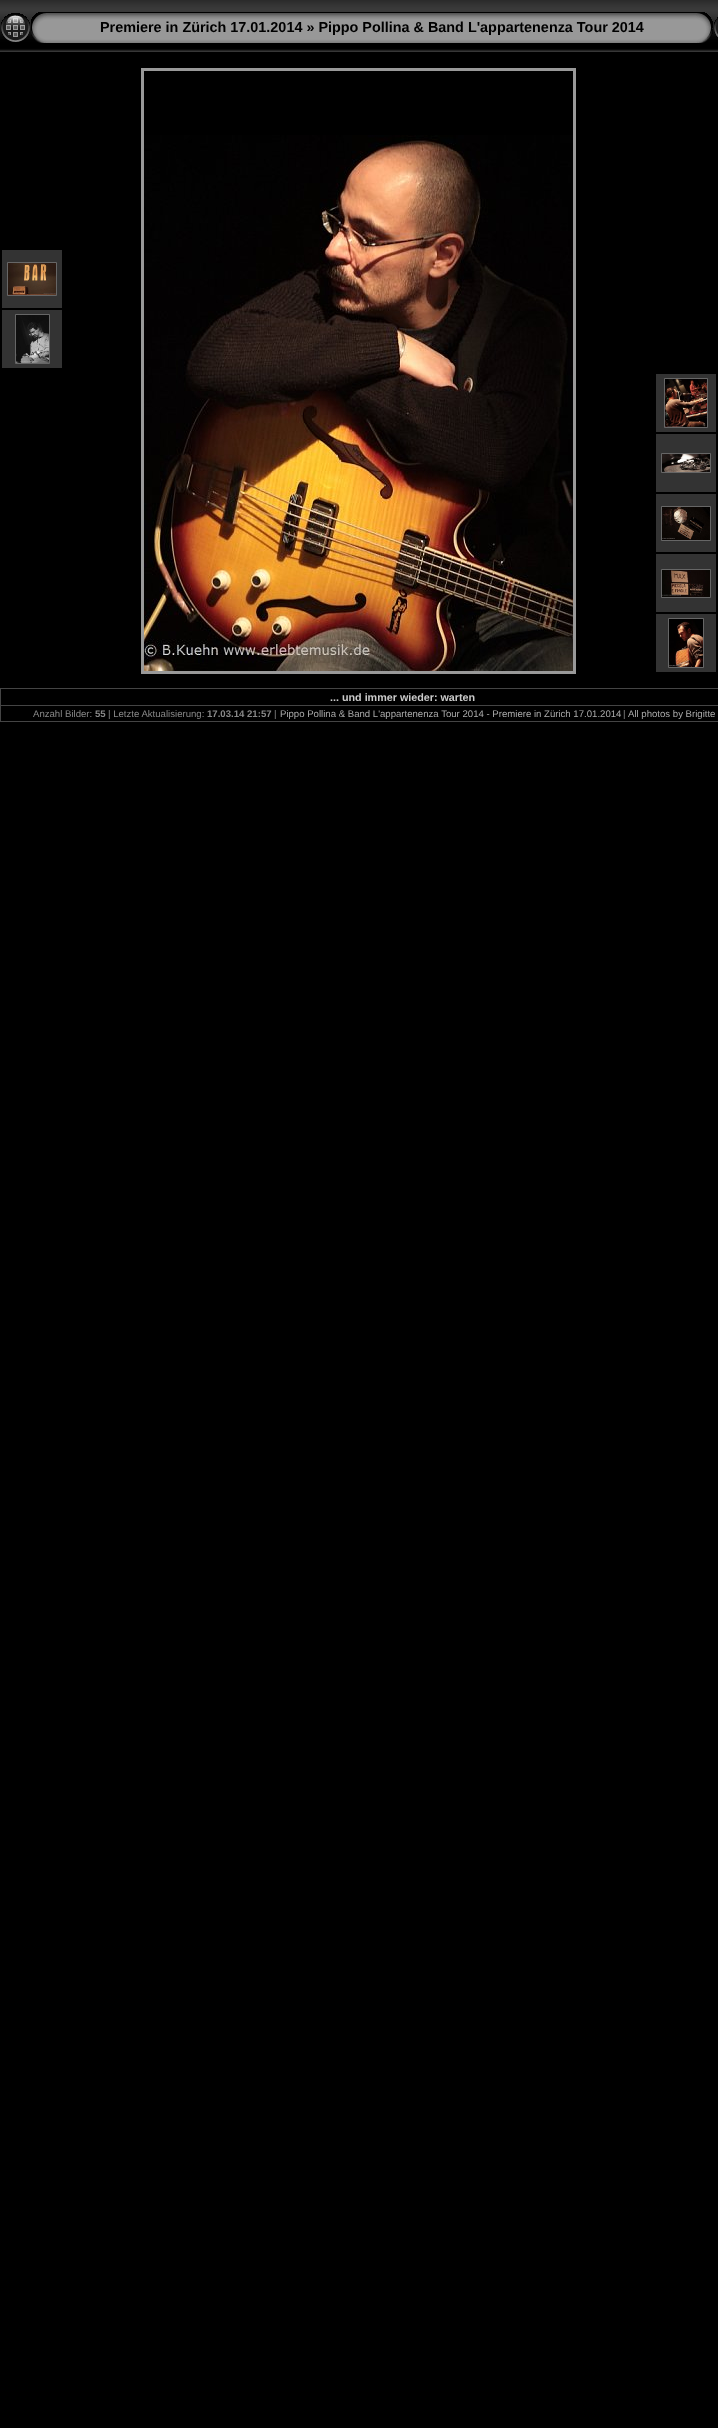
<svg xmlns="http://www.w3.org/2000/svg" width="718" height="2428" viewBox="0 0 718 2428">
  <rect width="100%" height="100%" fill="#000"/>
  <image x="0" y="0" width="718" height="52" href="img/1.png"/>
  <image x="1" y="13" width="29" height="29" href="img/2.png"/>
  <image x="31" y="12" width="20" height="31" href="img/3.png"/>
  <image x="51" y="12" width="642" height="31" href="img/4.png"/>
  <image x="693" y="12" width="20" height="31" href="img/5.png"/>
  <image x="714" y="17" width="4" height="20" href="img/6.png"/>
  <path d="M2 250h60v58H2z" fill="#333"/>
  <path d="M7.5 262.5h49v33H7.5z" fill="none" stroke="#666"/>
  <image x="8" y="263" width="48" height="32" href="img/7.png"/>
  <path d="M2 310h60v58H2z" fill="#333"/>
  <path d="M15.5 314.5h34v49H15.5z" fill="none" stroke="#666"/>
  <image x="16" y="315" width="33" height="48" href="img/8.png"/>
  <path d="M142.5 69.5h432v603H142.5z" fill="none" stroke="#999" stroke-width="3"/>
  <image x="144" y="135" width="429" height="536" href="img/9.png"/>
  <path d="M656 374h60v58H656z" fill="#333"/>
  <path d="M664.5 378.5h43v49H664.5z" fill="none" stroke="#666"/>
  <image x="665" y="379" width="42" height="48" href="img/10.png"/>
  <path d="M656 434h60v58H656z" fill="#333"/>
  <path d="M661.5 453.5h49v19H661.5z" fill="none" stroke="#666"/>
  <image x="662" y="454" width="48" height="18" href="img/11.png"/>
  <path d="M656 494h60v58H656z" fill="#333"/>
  <path d="M661.5 506.5h49v34H661.5z" fill="none" stroke="#666"/>
  <image x="662" y="507" width="48" height="33" href="img/12.png"/>
  <path d="M656 554h60v58H656z" fill="#333"/>
  <path d="M661.5 569.5h49v28H661.5z" fill="none" stroke="#666"/>
  <image x="662" y="570" width="48" height="27" href="img/13.png"/>
  <path d="M656 614h60v58H656z" fill="#333"/>
  <path d="M668.5 618.5h35v49H668.5z" fill="none" stroke="#666"/>
  <image x="669" y="619" width="34" height="48" href="img/14.png"/>
  <path d="M0 688h718v1H0z" fill="#444"/>
  <path d="M0 721h718v1H0z" fill="#444"/>
  <path d="M0 688h1v34H0z" fill="#444"/>
  <path d="M0 705h718v1H0z" fill="#444"/>
  <text x="100" y="32" font-family="Liberation Sans" font-size="14.4" font-weight="bold" fill="#000">Premiere in Zürich 17.01.2014 » Pippo Pollina &amp; Band L'appartenenza Tour 2014</text>
  <text x="330" y="701" font-family="Liberation Sans" font-size="10.75" font-weight="bold" fill="#ccc">... und immer wieder: warten</text>
  <text x="33" y="717" font-family="Liberation Sans" font-size="9.6" fill="#888">Anzahl Bilder:</text>
  <text x="95" y="717" font-family="Liberation Sans" font-size="9.6" font-weight="bold" fill="#888">55</text>
  <text x="108" y="717" font-family="Liberation Sans" font-size="9.6" fill="#888">| Letzte Aktualisierung:</text>
  <text x="207" y="717" font-family="Liberation Sans" font-size="9.6" font-weight="bold" fill="#888">17.03.14 21:57</text>
  <text x="274" y="717" font-family="Liberation Sans" font-size="9.6" fill="#888">|</text>
  <text x="280" y="717" font-family="Liberation Sans" font-size="9.6" fill="#aaa">Pippo Pollina &amp; Band L'appartenenza Tour 2014 - Premiere in Zürich 17.01.2014</text>
  <text x="623" y="717" font-family="Liberation Sans" font-size="9.6" fill="#888">|</text>
  <text x="628" y="717" font-family="Liberation Sans" font-size="9.6" fill="#aaa">All photos by Brigitte</text>
</svg>
